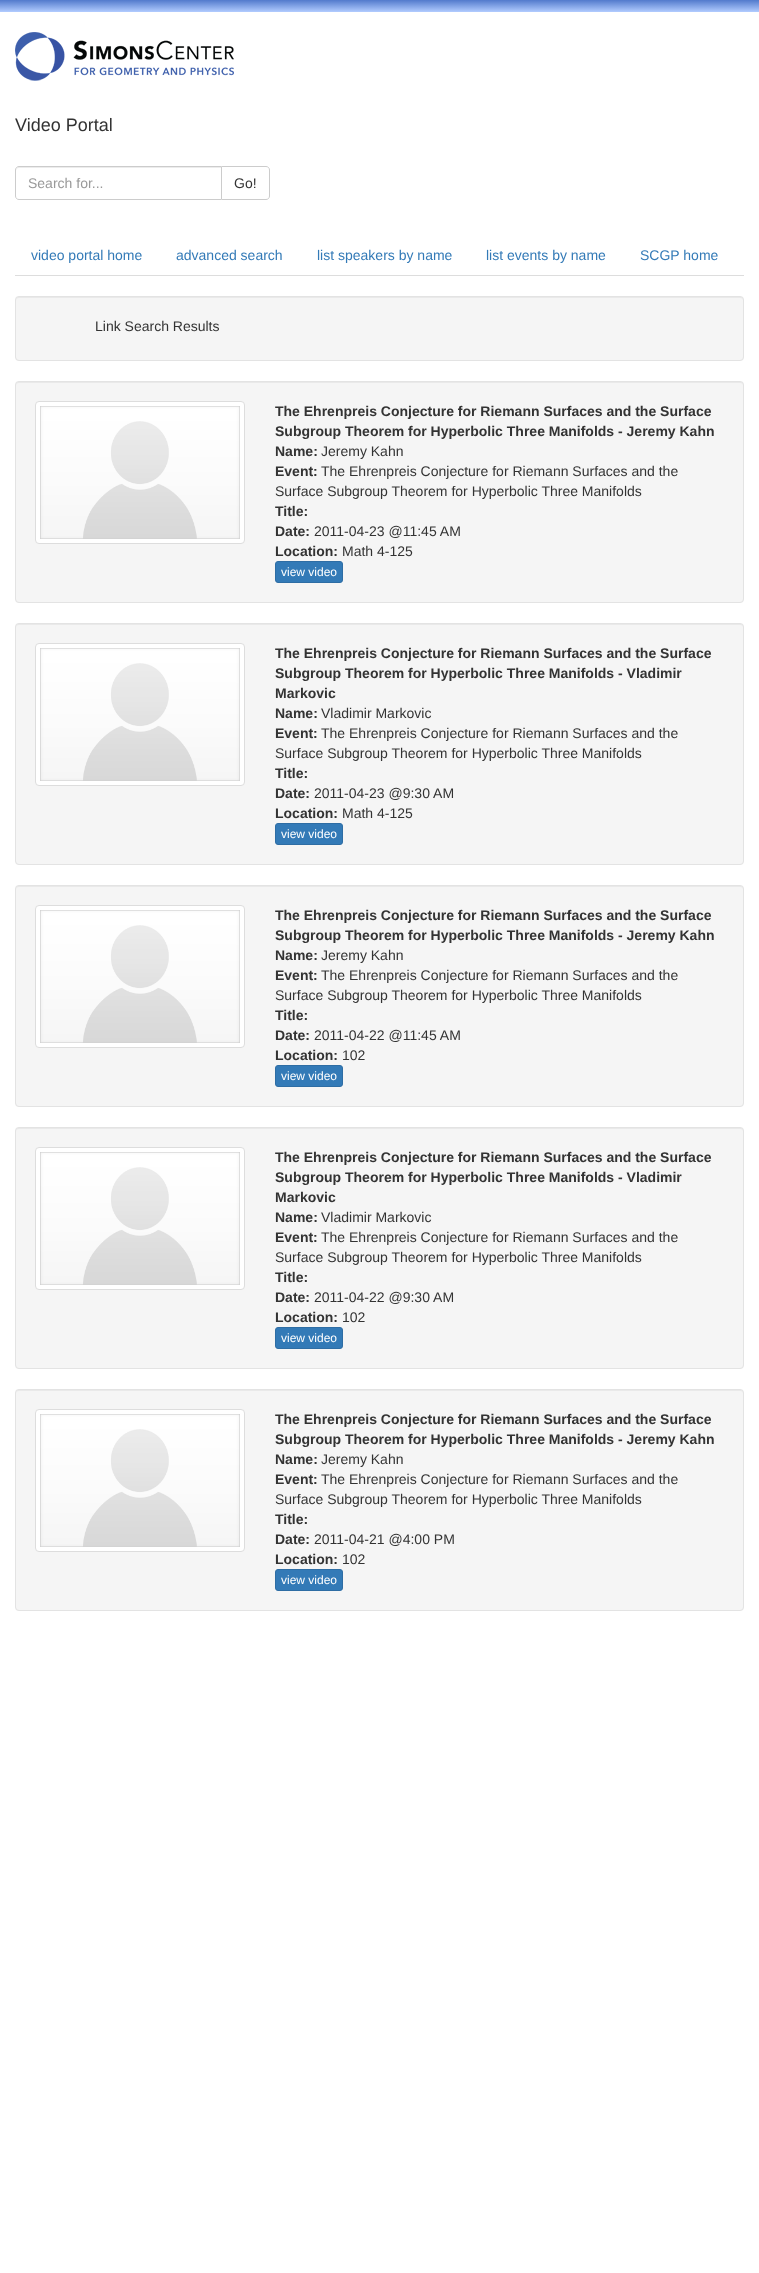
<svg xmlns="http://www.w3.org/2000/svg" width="759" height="2273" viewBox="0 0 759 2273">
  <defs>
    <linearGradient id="g1" gradientUnits="userSpaceOnUse" x1="380" y1="0" x2="380" y2="12"><stop offset="0" stop-color="#527acc"/><stop offset="1" stop-color="#b2ccff"/></linearGradient>
  </defs>
  <rect width="100%" height="100%" fill="#fff"/>
  <path d="M0 0h759v12H0z" fill="url(#g1)"/>
  <image x="15" y="32" width="219" height="49" href="img/1.png"/>
  <path d="M221.5 166.5H266C268 166.5 269.5 168 269.5 170V196C269.5 198 268 199.5 266 199.5H221.5Z" fill="none" stroke="#ccc"/>
  <path d="M19 166H222V200H19C17 200 15 198 15 196V170C15 168 17 166 19 166Z" fill="#fff"/>
  <path d="M19 168H221V167H18C16 168 16 169 16 171C16 169 17 168 19 168Z" fill="#ececec"/>
  <path d="M19 166.5H221.5V199.5H19C17 199.5 15.5 198 15.5 196V170C15.5 168 17 166.5 19 166.5Z" fill="none" stroke="#ccc"/>
  <path d="M15 275h729v1H15z" fill="#ddd"/>
  <rect x="15" y="296" width="729" height="65" rx="4" fill="#f5f5f5"/>
  <path d="M19 298H740C742 298 743 299 743 301C743 299 742 297 740 297H19C17 297 16 299 16 301C16 299 17 298 19 298Z" fill="#e9e9e9"/>
  <rect x="15.5" y="296.5" width="728" height="64" rx="3.5" fill="none" stroke="#e3e3e3"/>
  <rect x="15" y="381" width="729" height="222" rx="4" fill="#f5f5f5"/>
  <path d="M19 383H740C742 383 743 384 743 386C743 384 742 382 740 382H19C17 382 16 384 16 386C16 384 17 383 19 383Z" fill="#e9e9e9"/>
  <rect x="15.5" y="381.5" width="728" height="221" rx="3.5" fill="none" stroke="#e3e3e3"/>
  <rect x="35.5" y="401.5" width="209" height="142" rx="3.5" fill="#fff" stroke="#ddd"/>
  <image x="40" y="406" width="200" height="133" href="img/2.png"/>
  <rect x="275.5" y="561.5" width="67" height="21" rx="2.5" fill="#337ab7" stroke="#2e6da4"/>
  <rect x="15" y="623" width="729" height="242" rx="4" fill="#f5f5f5"/>
  <path d="M19 625H740C742 625 743 626 743 628C743 626 742 624 740 624H19C17 624 16 626 16 628C16 626 17 625 19 625Z" fill="#e9e9e9"/>
  <rect x="15.5" y="623.5" width="728" height="241" rx="3.5" fill="none" stroke="#e3e3e3"/>
  <rect x="35.5" y="643.5" width="209" height="142" rx="3.5" fill="#fff" stroke="#ddd"/>
  <image x="40" y="648" width="200" height="133" href="img/2.png"/>
  <rect x="275.5" y="823.5" width="67" height="21" rx="2.5" fill="#337ab7" stroke="#2e6da4"/>
  <rect x="15" y="885" width="729" height="222" rx="4" fill="#f5f5f5"/>
  <path d="M19 887H740C742 887 743 888 743 890C743 888 742 886 740 886H19C17 886 16 888 16 890C16 888 17 887 19 887Z" fill="#e9e9e9"/>
  <rect x="15.5" y="885.5" width="728" height="221" rx="3.5" fill="none" stroke="#e3e3e3"/>
  <rect x="35.5" y="905.5" width="209" height="142" rx="3.5" fill="#fff" stroke="#ddd"/>
  <image x="40" y="910" width="200" height="133" href="img/2.png"/>
  <rect x="275.5" y="1065.5" width="67" height="21" rx="2.5" fill="#337ab7" stroke="#2e6da4"/>
  <rect x="15" y="1127" width="729" height="242" rx="4" fill="#f5f5f5"/>
  <path d="M19 1129H740C742 1129 743 1130 743 1132C743 1130 742 1128 740 1128H19C17 1128 16 1130 16 1132C16 1130 17 1129 19 1129Z" fill="#e9e9e9"/>
  <rect x="15.5" y="1127.5" width="728" height="241" rx="3.5" fill="none" stroke="#e3e3e3"/>
  <rect x="35.5" y="1147.5" width="209" height="142" rx="3.5" fill="#fff" stroke="#ddd"/>
  <image x="40" y="1152" width="200" height="133" href="img/2.png"/>
  <rect x="275.5" y="1327.5" width="67" height="21" rx="2.5" fill="#337ab7" stroke="#2e6da4"/>
  <rect x="15" y="1389" width="729" height="222" rx="4" fill="#f5f5f5"/>
  <path d="M19 1391H740C742 1391 743 1392 743 1394C743 1392 742 1390 740 1390H19C17 1390 16 1392 16 1394C16 1392 17 1391 19 1391Z" fill="#e9e9e9"/>
  <rect x="15.5" y="1389.5" width="728" height="221" rx="3.5" fill="none" stroke="#e3e3e3"/>
  <rect x="35.5" y="1409.5" width="209" height="142" rx="3.5" fill="#fff" stroke="#ddd"/>
  <image x="40" y="1414" width="200" height="133" href="img/3.png"/>
  <rect x="275.5" y="1569.5" width="67" height="21" rx="2.5" fill="#337ab7" stroke="#2e6da4"/>
  <text x="15" y="131" font-family="Liberation Sans" font-size="18" fill="#333">Video Portal</text>
  <text x="28" y="188" font-family="Liberation Sans" font-size="14" fill="#999">Search for...</text>
  <text x="234" y="188" font-family="Liberation Sans" font-size="14" fill="#333">Go!</text>
  <g font-family="Liberation Sans" font-size="14" fill="#337ab7">
    <text x="31" y="260">video portal home</text>
    <text x="176" y="260">advanced search</text>
    <text x="317" y="260">list speakers by name</text>
    <text x="486" y="260">list events by name</text>
    <text x="640" y="260">SCGP home</text>
  </g>
  <text x="95" y="331" font-family="Liberation Sans" font-size="14" fill="#333">Link Search Results</text>
  <g font-family="Liberation Sans" font-size="14" font-weight="bold" fill="#333">
    <text x="275" y="416">The Ehrenpreis Conjecture for Riemann Surfaces and the Surface</text>
    <text x="275" y="436">Subgroup Theorem for Hyperbolic Three Manifolds - Jeremy Kahn</text>
    <text x="275" y="456">Name:</text>
  </g>
  <text x="321" y="456" font-family="Liberation Sans" font-size="14" fill="#333">Jeremy Kahn</text>
  <text x="275" y="476" font-family="Liberation Sans" font-size="14" font-weight="bold" fill="#333">Event:</text>
  <g font-family="Liberation Sans" font-size="14" fill="#333">
    <text x="321" y="476">The Ehrenpreis Conjecture for Riemann Surfaces and the</text>
    <text x="275" y="496">Surface Subgroup Theorem for Hyperbolic Three Manifolds</text>
  </g>
  <g font-family="Liberation Sans" font-size="14" font-weight="bold" fill="#333">
    <text x="275" y="516">Title:</text>
    <text x="275" y="536">Date:</text>
  </g>
  <text x="314" y="536" font-family="Liberation Sans" font-size="14" fill="#333">2011-04-23 @11:45 AM</text>
  <text x="275" y="556" font-family="Liberation Sans" font-size="14" font-weight="bold" fill="#333">Location:</text>
  <text x="342" y="556" font-family="Liberation Sans" font-size="14" fill="#333">Math 4-125</text>
  <text x="281" y="576" font-family="Liberation Sans" font-size="12" fill="#fff">view video</text>
  <g font-family="Liberation Sans" font-size="14" font-weight="bold" fill="#333">
    <text x="275" y="658">The Ehrenpreis Conjecture for Riemann Surfaces and the Surface</text>
    <text x="275" y="678">Subgroup Theorem for Hyperbolic Three Manifolds - Vladimir</text>
    <text x="275" y="698">Markovic</text>
    <text x="275" y="718">Name:</text>
  </g>
  <text x="321" y="718" font-family="Liberation Sans" font-size="14" fill="#333">Vladimir Markovic</text>
  <text x="275" y="738" font-family="Liberation Sans" font-size="14" font-weight="bold" fill="#333">Event:</text>
  <g font-family="Liberation Sans" font-size="14" fill="#333">
    <text x="321" y="738">The Ehrenpreis Conjecture for Riemann Surfaces and the</text>
    <text x="275" y="758">Surface Subgroup Theorem for Hyperbolic Three Manifolds</text>
  </g>
  <g font-family="Liberation Sans" font-size="14" font-weight="bold" fill="#333">
    <text x="275" y="778">Title:</text>
    <text x="275" y="798">Date:</text>
  </g>
  <text x="314" y="798" font-family="Liberation Sans" font-size="14" fill="#333">2011-04-23 @9:30 AM</text>
  <text x="275" y="818" font-family="Liberation Sans" font-size="14" font-weight="bold" fill="#333">Location:</text>
  <text x="342" y="818" font-family="Liberation Sans" font-size="14" fill="#333">Math 4-125</text>
  <text x="281" y="838" font-family="Liberation Sans" font-size="12" fill="#fff">view video</text>
  <g font-family="Liberation Sans" font-size="14" font-weight="bold" fill="#333">
    <text x="275" y="920">The Ehrenpreis Conjecture for Riemann Surfaces and the Surface</text>
    <text x="275" y="940">Subgroup Theorem for Hyperbolic Three Manifolds - Jeremy Kahn</text>
    <text x="275" y="960">Name:</text>
  </g>
  <text x="321" y="960" font-family="Liberation Sans" font-size="14" fill="#333">Jeremy Kahn</text>
  <text x="275" y="980" font-family="Liberation Sans" font-size="14" font-weight="bold" fill="#333">Event:</text>
  <g font-family="Liberation Sans" font-size="14" fill="#333">
    <text x="321" y="980">The Ehrenpreis Conjecture for Riemann Surfaces and the</text>
    <text x="275" y="1000">Surface Subgroup Theorem for Hyperbolic Three Manifolds</text>
  </g>
  <g font-family="Liberation Sans" font-size="14" font-weight="bold" fill="#333">
    <text x="275" y="1020">Title:</text>
    <text x="275" y="1040">Date:</text>
  </g>
  <text x="314" y="1040" font-family="Liberation Sans" font-size="14" fill="#333">2011-04-22 @11:45 AM</text>
  <text x="275" y="1060" font-family="Liberation Sans" font-size="14" font-weight="bold" fill="#333">Location:</text>
  <text x="342" y="1060" font-family="Liberation Sans" font-size="14" fill="#333">102</text>
  <text x="281" y="1080" font-family="Liberation Sans" font-size="12" fill="#fff">view video</text>
  <g font-family="Liberation Sans" font-size="14" font-weight="bold" fill="#333">
    <text x="275" y="1162">The Ehrenpreis Conjecture for Riemann Surfaces and the Surface</text>
    <text x="275" y="1182">Subgroup Theorem for Hyperbolic Three Manifolds - Vladimir</text>
    <text x="275" y="1202">Markovic</text>
    <text x="275" y="1222">Name:</text>
  </g>
  <text x="321" y="1222" font-family="Liberation Sans" font-size="14" fill="#333">Vladimir Markovic</text>
  <text x="275" y="1242" font-family="Liberation Sans" font-size="14" font-weight="bold" fill="#333">Event:</text>
  <g font-family="Liberation Sans" font-size="14" fill="#333">
    <text x="321" y="1242">The Ehrenpreis Conjecture for Riemann Surfaces and the</text>
    <text x="275" y="1262">Surface Subgroup Theorem for Hyperbolic Three Manifolds</text>
  </g>
  <g font-family="Liberation Sans" font-size="14" font-weight="bold" fill="#333">
    <text x="275" y="1282">Title:</text>
    <text x="275" y="1302">Date:</text>
  </g>
  <text x="314" y="1302" font-family="Liberation Sans" font-size="14" fill="#333">2011-04-22 @9:30 AM</text>
  <text x="275" y="1322" font-family="Liberation Sans" font-size="14" font-weight="bold" fill="#333">Location:</text>
  <text x="342" y="1322" font-family="Liberation Sans" font-size="14" fill="#333">102</text>
  <text x="281" y="1342" font-family="Liberation Sans" font-size="12" fill="#fff">view video</text>
  <g font-family="Liberation Sans" font-size="14" font-weight="bold" fill="#333">
    <text x="275" y="1424">The Ehrenpreis Conjecture for Riemann Surfaces and the Surface</text>
    <text x="275" y="1444">Subgroup Theorem for Hyperbolic Three Manifolds - Jeremy Kahn</text>
    <text x="275" y="1464">Name:</text>
  </g>
  <text x="321" y="1464" font-family="Liberation Sans" font-size="14" fill="#333">Jeremy Kahn</text>
  <text x="275" y="1484" font-family="Liberation Sans" font-size="14" font-weight="bold" fill="#333">Event:</text>
  <g font-family="Liberation Sans" font-size="14" fill="#333">
    <text x="321" y="1484">The Ehrenpreis Conjecture for Riemann Surfaces and the</text>
    <text x="275" y="1504">Surface Subgroup Theorem for Hyperbolic Three Manifolds</text>
  </g>
  <g font-family="Liberation Sans" font-size="14" font-weight="bold" fill="#333">
    <text x="275" y="1524">Title:</text>
    <text x="275" y="1544">Date:</text>
  </g>
  <text x="314" y="1544" font-family="Liberation Sans" font-size="14" fill="#333">2011-04-21 @4:00 PM</text>
  <text x="275" y="1564" font-family="Liberation Sans" font-size="14" font-weight="bold" fill="#333">Location:</text>
  <text x="342" y="1564" font-family="Liberation Sans" font-size="14" fill="#333">102</text>
  <text x="281" y="1584" font-family="Liberation Sans" font-size="12" fill="#fff">view video</text>
</svg>
